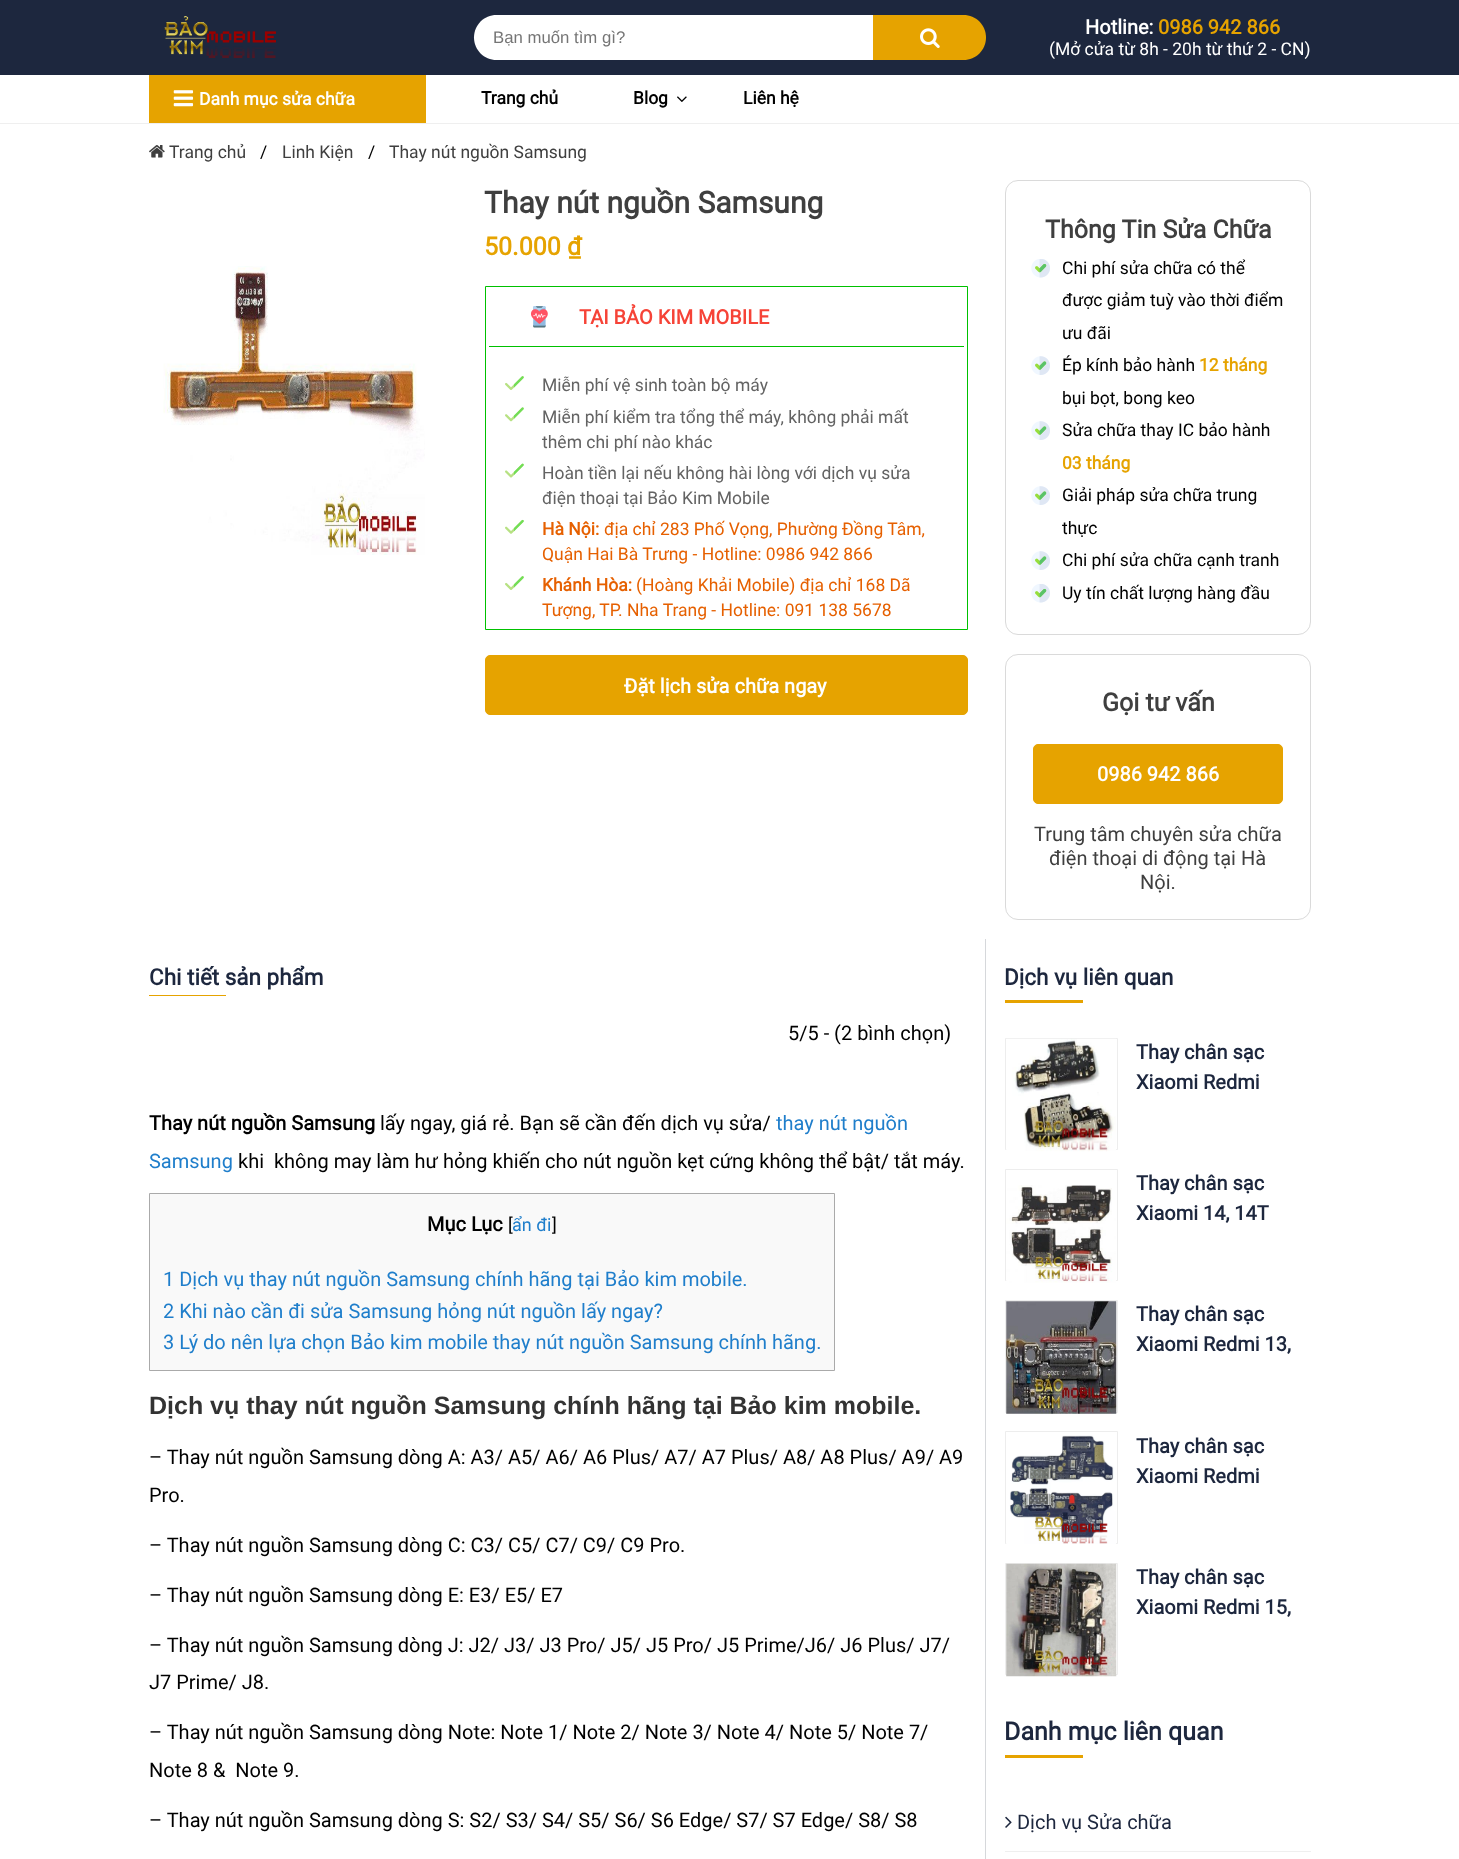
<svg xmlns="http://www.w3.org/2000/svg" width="1459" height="1859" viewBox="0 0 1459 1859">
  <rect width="100%" height="100%" fill="#fff"/>
  <path d="M0 0h1459v75H0z" fill="#1d273e"/>
  <image x="164" y="16" width="112" height="42" href="img/1.png"/>
  <path d="M496.5 15H873V60H496.5C484 60 474 50 474 37.5C474 25 484 15 496.5 15Z" fill="#fff"/>
  <path d="M873 15H963.5C976 15 986 25 986 37.5C986 50 976 60 963.5 60H873Z" fill="#e6a300"/>
  <image x="920" y="28" width="20" height="20" href="img/2.png"/>
  <path d="M0 123h1459v1H0z" fill="#efefef"/>
  <path d="M149 75h277v48H149z" fill="#e6a300"/>
  <image x="173" y="90" width="21" height="17" href="img/3.png"/>
  <image x="677" y="96" width="10" height="6" href="img/4.png"/>
  <image x="149" y="145" width="16" height="13" href="img/5.png"/>
  <image x="163" y="266" width="262" height="289" href="img/6.png"/>
  <path d="M485.5 286.5h482v343H485.5z" fill="none" stroke="#00c100"/>
  <path d="M489 346h475v1H489z" fill="#00c100"/>
  <image x="530" y="306" width="18" height="22" href="img/7.png"/>
  <image x="505" y="376" width="19" height="14" href="img/8.png"/>
  <image x="505" y="407" width="19" height="15" href="img/9.png"/>
  <image x="505" y="463" width="19" height="15" href="img/10.png"/>
  <image x="505" y="519" width="19" height="15" href="img/11.png"/>
  <image x="505" y="576" width="19" height="14" href="img/8.png"/>
  <rect x="485.5" y="655.5" width="482" height="59" rx="4.5" fill="#e6a300" stroke="#e6a300"/>
  <rect x="1005.5" y="180.5" width="305" height="454" rx="12.5" fill="none" stroke="#dadada"/>
  <image x="1031" y="259" width="19" height="19" href="img/12.png"/>
  <image x="1031" y="356" width="19" height="19" href="img/13.png"/>
  <image x="1031" y="421" width="19" height="19" href="img/13.png"/>
  <image x="1031" y="486" width="19" height="19" href="img/13.png"/>
  <image x="1031" y="551" width="19" height="19" href="img/13.png"/>
  <image x="1031" y="584" width="19" height="19" href="img/12.png"/>
  <rect x="1005.5" y="654.5" width="305" height="265" rx="12.5" fill="none" stroke="#dadada"/>
  <rect x="1033.5" y="744.5" width="249" height="59" rx="4.5" fill="#e6a300" stroke="#e6a300"/>
  <path d="M985 939h1v920H985z" fill="#d6d8db"/>
  <path d="M149 995h77v1H149z" fill="#e6a300"/>
  <path d="M149.5 1193.5h685v177H149.5z" fill="#f9f9f9" stroke="#aaa"/>
  <path d="M1005 1000h78v3H1005z" fill="#e6a300"/>
  <path d="M1005.5 1038.5h112v111H1005.5z" fill="none" stroke="#ededed"/>
  <image x="1006" y="1038" width="111" height="114" href="img/14.png"/>
  <path d="M1005.5 1169.5h112v111H1005.5z" fill="none" stroke="#ededed"/>
  <image x="1006" y="1185" width="111" height="98" href="img/15.png"/>
  <path d="M1005.5 1300.5h112v112H1005.5z" fill="none" stroke="#ededed"/>
  <image x="1006" y="1301" width="111" height="113" href="img/16.png"/>
  <path d="M1005.5 1431.5h112v112H1005.5z" fill="none" stroke="#ededed"/>
  <image x="1006" y="1435" width="111" height="109" href="img/17.png"/>
  <path d="M1005.5 1563.5h112v111H1005.5z" fill="none" stroke="#ededed"/>
  <image x="1006" y="1563" width="111" height="114" href="img/18.png"/>
  <path d="M1005 1755h78v3H1005z" fill="#e6a300"/>
  <path d="M1005 1851h306v1H1005z" fill="#efefef"/>
  <image x="1005" y="1816" width="7" height="12" href="img/19.png"/>
  <text x="493" y="43" font-family="Liberation Sans" font-size="16.75" fill="#757575">Bạn muốn tìm gì?</text>
  <text x="1085" y="34" font-family="Roboto" font-size="20" font-weight="bold" fill="#fff">Hotline:</text>
  <text x="1158" y="34" font-family="Roboto" font-size="20" font-weight="bold" fill="#e6a300">0986 942 866</text>
  <text x="1049" y="55" font-family="Roboto" font-size="17.5" fill="#fff">(Mở cửa từ 8h - 20h từ thứ 2 - CN)</text>
  <text x="199" y="105" font-family="Roboto" font-size="17.5" font-weight="bold" fill="#fff">Danh mục sửa chữa</text>
  <g font-family="Roboto" font-size="17.5" font-weight="bold" fill="#000">
    <text x="481" y="104">Trang chủ</text>
    <text x="633" y="104">Blog</text>
    <text x="743" y="104">Liên hệ</text>
  </g>
  <text x="169" y="158" font-family="Roboto" font-size="17.5" fill="#3f3f3f">Trang chủ</text>
  <text x="260" y="158" font-family="Roboto" font-size="17.5" fill="#000">/</text>
  <text x="282" y="158" font-family="Roboto" font-size="17.5" fill="#3f3f3f">Linh Kiện</text>
  <text x="368" y="158" font-family="Roboto" font-size="17.5" fill="#000">/</text>
  <text x="389" y="158" font-family="Roboto" font-size="17.5" fill="#3f3f3f">Thay nút nguồn Samsung</text>
  <text x="484" y="213" font-family="Roboto" font-size="30" font-weight="bold" fill="#3f3f3f">Thay nút nguồn Samsung</text>
  <text x="484" y="255" font-family="Roboto" font-size="25" font-weight="bold" fill="#e6a300">50.000 ₫</text>
  <text x="579" y="324" font-family="Roboto" font-size="20" font-weight="bold" fill="#f64337">TẠI BẢO KIM MOBILE</text>
  <g font-family="Roboto" font-size="17.5" fill="#636363">
    <text x="542" y="391">Miễn phí vệ sinh toàn bộ máy</text>
    <text x="542" y="423">Miễn phí kiểm tra tổng thể máy, không phải mất</text>
    <text x="542" y="448">thêm chi phí nào khác</text>
    <text x="542" y="479">Hoàn tiền lại nếu không hài lòng với dịch vụ sửa</text>
    <text x="542" y="504">điện thoại tại Bảo Kim Mobile</text>
  </g>
  <text x="542" y="535" font-family="Roboto" font-size="17.5" font-weight="bold" fill="#e66000">Hà Nội:</text>
  <g font-family="Roboto" font-size="17.5" fill="#e66000">
    <text x="604" y="535">địa chỉ 283 Phố Vọng, Phường Đồng Tâm,</text>
    <text x="542" y="560">Quận Hai Bà Trưng - Hotline: 0986 942 866</text>
  </g>
  <text x="542" y="591" font-family="Roboto" font-size="17.5" font-weight="bold" fill="#e66000">Khánh Hòa:</text>
  <g font-family="Roboto" font-size="17.5" fill="#e66000">
    <text x="636" y="591">(Hoàng Khải Mobile) địa chỉ 168 Dã</text>
    <text x="542" y="616">Tượng, TP. Nha Trang - Hotline: 091 138 5678</text>
  </g>
  <text x="624" y="693" font-family="Roboto" font-size="20" font-weight="bold" fill="#fff">Đặt lịch sửa chữa ngay</text>
  <text x="1045" y="238" font-family="Roboto" font-size="25" font-weight="bold" fill="#3f3f3f">Thông Tin Sửa Chữa</text>
  <g font-family="Roboto" font-size="17.5" fill="#000">
    <text x="1062" y="274">Chi phí sửa chữa có thể</text>
    <text x="1062" y="306">được giảm tuỳ vào thời điểm</text>
    <text x="1062" y="339">ưu đãi</text>
    <text x="1062" y="371">Ép kính bảo hành</text>
  </g>
  <text x="1199" y="371" font-family="Roboto" font-size="17.5" font-weight="bold" fill="#e6a300">12 tháng</text>
  <g font-family="Roboto" font-size="17.5" fill="#000">
    <text x="1062" y="404">bụi bọt, bong keo</text>
    <text x="1062" y="436">Sửa chữa thay IC bảo hành</text>
  </g>
  <text x="1062" y="469" font-family="Roboto" font-size="17.5" font-weight="bold" fill="#e6a300">03 tháng</text>
  <g font-family="Roboto" font-size="17.5" fill="#000">
    <text x="1062" y="501">Giải pháp sửa chữa trung</text>
    <text x="1062" y="534">thực</text>
    <text x="1062" y="566">Chi phí sửa chữa cạnh tranh</text>
    <text x="1062" y="599">Uy tín chất lượng hàng đầu</text>
  </g>
  <text x="1102" y="711" font-family="Roboto" font-size="25" font-weight="bold" fill="#3f3f3f">Gọi tư vấn</text>
  <text x="1097" y="781" font-family="Roboto" font-size="20" font-weight="bold" fill="#fff">0986 942 866</text>
  <g font-family="Roboto" font-size="20" fill="#3f3f3f">
    <text x="1034" y="841">Trung tâm chuyên sửa chữa</text>
    <text x="1049" y="865">điện thoại di động tại Hà</text>
    <text x="1140" y="889">Nội.</text>
  </g>
  <text x="149" y="985" font-family="Roboto" font-size="22.5" font-weight="bold" fill="#1d273e">Chi tiết sản phẩm</text>
  <text x="788" y="1040" font-family="Roboto" font-size="20" fill="#000">5/5 - (2 bình chọn)</text>
  <text x="149" y="1130" font-family="Roboto" font-size="20" font-weight="bold" fill="#000">Thay nút nguồn Samsung</text>
  <text x="380" y="1130" font-family="Roboto" font-size="20" fill="#000">lấy ngay, giá rẻ. Bạn sẽ cần đến dịch vụ sửa/</text>
  <g font-family="Roboto" font-size="20" fill="#1f7ecb">
    <text x="776" y="1130">thay nút nguồn</text>
    <text x="149" y="1168">Samsung</text>
  </g>
  <text x="238" y="1168" font-family="Roboto" font-size="20" fill="#000" xml:space="preserve">khi  không may làm hư hỏng khiến cho nút nguồn kẹt cứng không thể bật/ tắt máy.</text>
  <text x="427" y="1231" font-family="Roboto" font-size="20" font-weight="bold" fill="#000">Mục Lục</text>
  <text x="508" y="1231" font-family="Roboto" font-size="18" fill="#000">[</text>
  <text x="512" y="1231" font-family="Roboto" font-size="18" fill="#1f7ecb">ẩn đi</text>
  <text x="552" y="1231" font-family="Roboto" font-size="18" fill="#000">]</text>
  <g font-family="Roboto" font-size="20" fill="#1f7ecb">
    <text x="163" y="1286">1 Dịch vụ thay nút nguồn Samsung chính hãng tại Bảo kim mobile.</text>
    <text x="163" y="1318">2 Khi nào cần đi sửa Samsung hỏng nút nguồn lấy ngay?</text>
    <text x="163" y="1349">3 Lý do nên lựa chọn Bảo kim mobile thay nút nguồn Samsung chính hãng.</text>
  </g>
  <text x="149" y="1414" font-family="Liberation Sans" font-size="25" font-weight="bold" fill="#333">Dịch vụ thay nút nguồn Samsung chính hãng tại Bảo kim mobile.</text>
  <g font-family="Roboto" font-size="20" fill="#000">
    <text x="149" y="1464">– Thay nút nguồn Samsung dòng A: A3/ A5/ A6/ A6 Plus/ A7/ A7 Plus/ A8/ A8 Plus/ A9/ A9</text>
    <text x="149" y="1502">Pro.</text>
    <text x="149" y="1552">– Thay nút nguồn Samsung dòng C: C3/ C5/ C7/ C9/ C9 Pro.</text>
    <text x="149" y="1602">– Thay nút nguồn Samsung dòng E: E3/ E5/ E7</text>
    <text x="149" y="1652">– Thay nút nguồn Samsung dòng J: J2/ J3/ J3 Pro/ J5/ J5 Pro/ J5 Prime/J6/ J6 Plus/ J7/</text>
    <text x="149" y="1689">J7 Prime/ J8.</text>
    <text x="149" y="1739">– Thay nút nguồn Samsung dòng Note: Note 1/ Note 2/ Note 3/ Note 4/ Note 5/ Note 7/</text>
    <text x="149" y="1777" xml:space="preserve">Note 8 &amp;  Note 9.</text>
    <text x="149" y="1827">– Thay nút nguồn Samsung dòng S: S2/ S3/ S4/ S5/ S6/ S6 Edge/ S7/ S7 Edge/ S8/ S8</text>
  </g>
  <text x="1004" y="985" font-family="Roboto" font-size="22.5" font-weight="bold" fill="#1d273e">Dịch vụ liên quan</text>
  <g font-family="Roboto" font-size="20" font-weight="bold" fill="#1d273e">
    <text x="1136" y="1059">Thay chân sạc</text>
    <text x="1136" y="1089">Xiaomi Redmi</text>
    <text x="1136" y="1190">Thay chân sạc</text>
    <text x="1136" y="1220">Xiaomi 14, 14T</text>
    <text x="1136" y="1321">Thay chân sạc</text>
    <text x="1136" y="1351">Xiaomi Redmi 13,</text>
    <text x="1136" y="1453">Thay chân sạc</text>
    <text x="1136" y="1483">Xiaomi Redmi</text>
    <text x="1136" y="1584">Thay chân sạc</text>
    <text x="1136" y="1614">Xiaomi Redmi 15,</text>
  </g>
  <text x="1004" y="1740" font-family="Roboto" font-size="25" font-weight="bold" fill="#1d273e">Danh mục liên quan</text>
  <text x="1017" y="1829" font-family="Roboto" font-size="20" fill="#1d273e">Dịch vụ Sửa chữa</text>
</svg>
